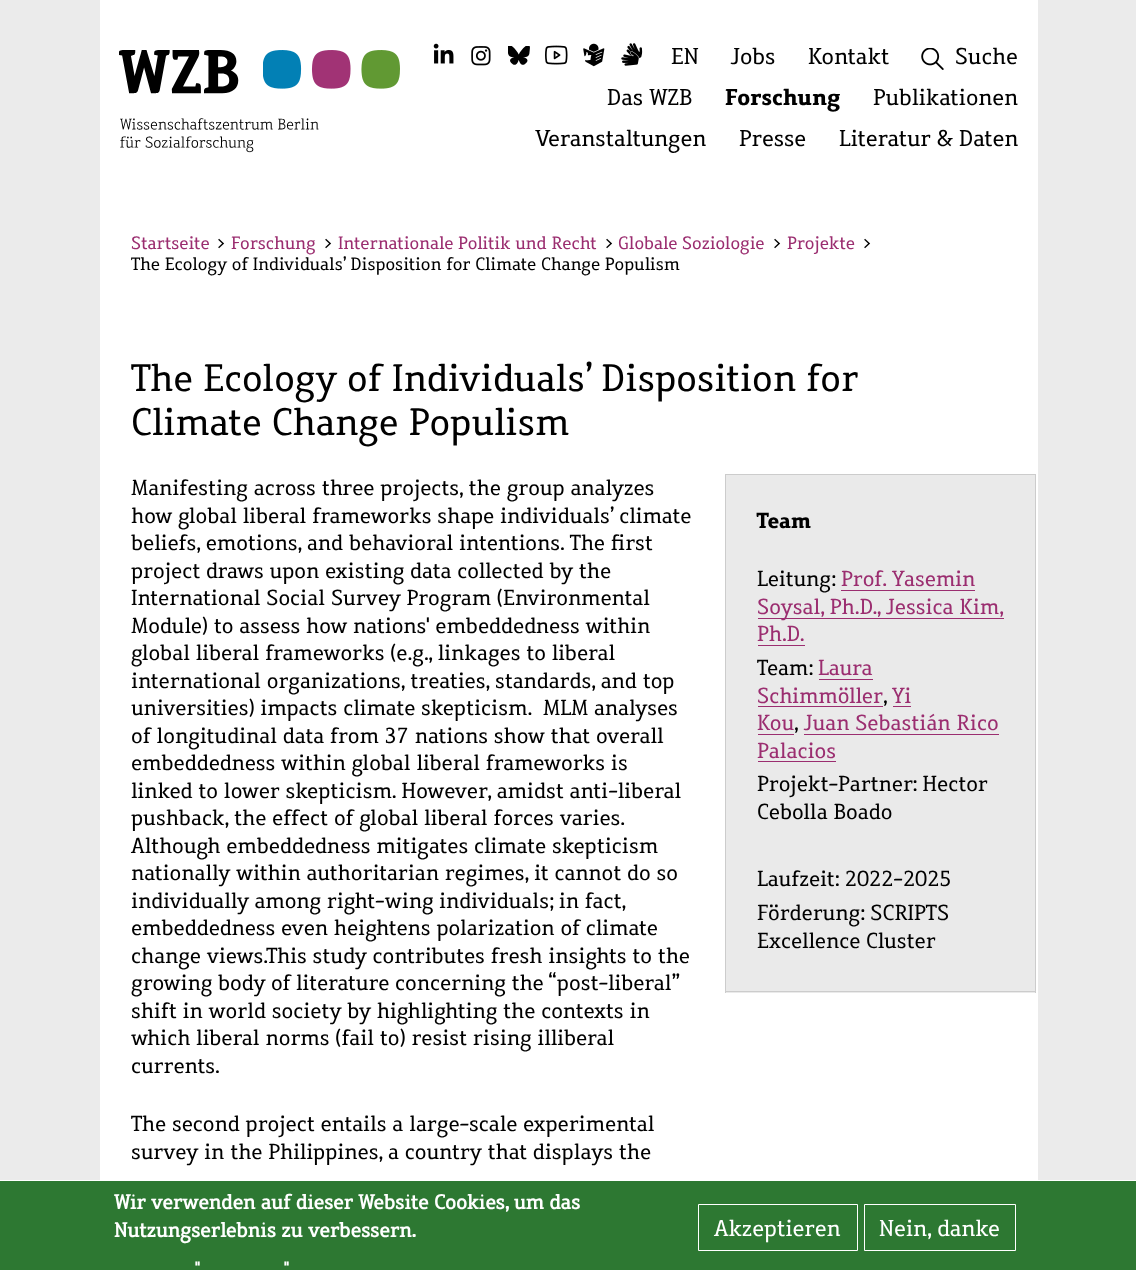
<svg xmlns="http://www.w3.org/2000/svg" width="1136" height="1270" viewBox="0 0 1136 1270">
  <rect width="100%" height="100%" fill="#ebebeb"/>
  <path d="M100 0h938v1180H100z" fill="#fff"/>
  <image x="119" y="50" width="200" height="103" href="img/1.png"/>
  <image x="263" y="50" width="137" height="39" href="img/2.png"/>
  <image x="433" y="43" width="21" height="21" href="img/3.png"/>
  <image x="471" y="46" width="20" height="20" href="img/4.png"/>
  <image x="508" y="46" width="22" height="19" href="img/5.png"/>
  <image x="545" y="45" width="23" height="20" href="img/6.png"/>
  <image x="583" y="43" width="22" height="24" href="img/7.png"/>
  <image x="621" y="43" width="22" height="23" href="img/8.png"/>
  <image x="921" y="48" width="23" height="22" href="img/9.png"/>
  <path d="M725 474h1v519H725z" fill="#ccc"/>
  <path d="M726 474h310v1H726z" fill="#ccc"/>
  <path d="M726 475h309v518H726z" fill="#eaeaea"/>
  <path d="M1035 475h1v518H1035z" fill="#ccc"/>
  <path d="M726 991h310v1H726z" fill="#ccc"/>
  <path d="M841 590h134v1H841z" fill="#9b2e70"/>
  <path d="M758 618h246v1H758z" fill="#9b2e70"/>
  <path d="M758 645h47v1H758z" fill="#9b2e70"/>
  <path d="M819 679h54v1H819z" fill="#9b2e70"/>
  <path d="M758 706h125v1H758z" fill="#9b2e70"/>
  <path d="M893 706h18v1H893z" fill="#9b2e70"/>
  <path d="M758 734h36v1H758z" fill="#9b2e70"/>
  <path d="M804 734h195v1H804z" fill="#9b2e70"/>
  <path d="M758 761h78v1H758z" fill="#9b2e70"/>
  <path d="M0 1181h1136v89H0z" fill="#2d7832"/>
  <path d="M0 1180h1136v1H0z" fill="#fff"/>
  <path d="M698.5 1204.5h159v46H698.5z" fill="none" stroke="#fff"/>
  <path d="M864.5 1204.5h151v46H864.5z" fill="none" stroke="#fff"/>
  <g font-family="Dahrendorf" font-size="22.5" fill="#000">
    <text x="671" y="64">EN</text>
    <text x="731" y="64">Jobs</text>
    <text x="808" y="64">Kontakt</text>
    <text x="955" y="64">Suche</text>
    <text x="607" y="105">Das WZB</text>
  </g>
  <text x="725" y="105" font-family="Dahrendorf" font-size="22.5" font-weight="bold" fill="#000">Forschung</text>
  <g font-family="Dahrendorf" font-size="22.5" fill="#000">
    <text x="873" y="105">Publikationen</text>
    <text x="535" y="146">Veranstaltungen</text>
    <text x="739" y="146">Presse</text>
    <text x="839" y="146">Literatur &amp; Daten</text>
  </g>
  <text x="131" y="249" font-family="Dahrendorf" font-size="17.5" fill="#9b2e70">Startseite</text>
  <text x="216" y="249" font-family="Dahrendorf" font-size="17.5" fill="#000">&gt;</text>
  <text x="231" y="249" font-family="Dahrendorf" font-size="17.5" fill="#9b2e70">Forschung</text>
  <text x="323" y="249" font-family="Dahrendorf" font-size="17.5" fill="#000">&gt;</text>
  <text x="338" y="249" font-family="Dahrendorf" font-size="17.5" fill="#9b2e70">Internationale Politik und Recht</text>
  <text x="604" y="249" font-family="Dahrendorf" font-size="17.5" fill="#000">&gt;</text>
  <text x="618" y="249" font-family="Dahrendorf" font-size="17.5" fill="#9b2e70">Globale Soziologie</text>
  <text x="772" y="249" font-family="Dahrendorf" font-size="17.5" fill="#000">&gt;</text>
  <text x="787" y="249" font-family="Dahrendorf" font-size="17.5" fill="#9b2e70">Projekte</text>
  <g font-family="Dahrendorf" font-size="17.5" fill="#000">
    <text x="862" y="249">&gt;</text>
    <text x="131" y="270">The Ecology of Individuals’ Disposition for Climate Change Populism</text>
  </g>
  <g font-family="Dahrendorf" font-size="37.5" fill="#000">
    <text x="131" y="391">The Ecology of Individuals’ Disposition for</text>
    <text x="131" y="435">Climate Change Populism</text>
  </g>
  <g font-family="Dahrendorf" font-size="21.25" fill="#000">
    <text x="131" y="495">Manifesting across three projects, the group analyzes</text>
    <text x="131" y="523">how global liberal frameworks shape individuals’ climate</text>
    <text x="131" y="550">beliefs, emotions, and behavioral intentions. The first</text>
    <text x="131" y="578">project draws upon existing data collected by the</text>
    <text x="131" y="605">International Social Survey Program (Environmental</text>
    <text x="131" y="633">Module) to assess how nations' embeddedness within</text>
    <text x="131" y="660">global liberal frameworks (e.g., linkages to liberal</text>
    <text x="131" y="688">international organizations, treaties, standards, and top</text>
    <text x="131" y="715" xml:space="preserve">universities) impacts climate skepticism.  MLM analyses</text>
    <text x="131" y="743">of longitudinal data from 37 nations show that overall</text>
    <text x="131" y="770">embeddedness within global liberal frameworks is</text>
    <text x="131" y="798">linked to lower skepticism. However, amidst anti-liberal</text>
    <text x="131" y="825">pushback, the effect of global liberal forces varies.</text>
    <text x="131" y="853">Although embeddedness mitigates climate skepticism</text>
    <text x="131" y="880">nationally within authoritarian regimes, it cannot do so</text>
    <text x="131" y="908" word-spacing="-0.25">individually among right-wing individuals; in fact,</text>
    <text x="131" y="935">embeddedness even heightens polarization of climate</text>
    <text x="131" y="963">change views.This study contributes fresh insights to the</text>
    <text x="131" y="990" word-spacing="-0.25">growing body of literature concerning the “post-liberal”</text>
    <text x="131" y="1018">shift in world society by highlighting the contexts in</text>
    <text x="131" y="1045">which liberal norms (fail to) resist rising illiberal</text>
    <text x="131" y="1073">currents.</text>
    <text x="131" y="1131">The second project entails a large-scale experimental</text>
    <text x="131" y="1159">survey in the Philippines, a country that displays the</text>
  </g>
  <text x="757" y="528" font-family="Dahrendorf" font-size="21.25" font-weight="bold" fill="#000">Team</text>
  <text x="757" y="586" font-family="Dahrendorf" font-size="21.25" fill="#000">Leitung:</text>
  <g font-family="Dahrendorf" font-size="21.25" fill="#9b2e70">
    <text x="841" y="586">Prof. Yasemin</text>
    <text x="757" y="614">Soysal, Ph.D., Jessica Kim,</text>
    <text x="757" y="641">Ph.D.</text>
  </g>
  <text x="757" y="675" font-family="Dahrendorf" font-size="21.25" fill="#000">Team:</text>
  <g font-family="Dahrendorf" font-size="21.25" fill="#9b2e70">
    <text x="818" y="675">Laura</text>
    <text x="757" y="703">Schimmöller</text>
  </g>
  <text x="883" y="703" font-family="Dahrendorf" font-size="21.25" fill="#000">,</text>
  <g font-family="Dahrendorf" font-size="21.25" fill="#9b2e70">
    <text x="892" y="703">Yi</text>
    <text x="757" y="730">Kou</text>
  </g>
  <text x="794" y="730" font-family="Dahrendorf" font-size="21.25" fill="#000">,</text>
  <g font-family="Dahrendorf" font-size="21.25" fill="#9b2e70">
    <text x="804" y="730">Juan Sebastián Rico</text>
    <text x="757" y="758">Palacios</text>
  </g>
  <g font-family="Dahrendorf" font-size="21.25" fill="#000">
    <text x="757" y="791">Projekt-Partner: Hector</text>
    <text x="757" y="819">Cebolla Boado</text>
    <text x="757" y="886">Laufzeit: 2022-2025</text>
    <text x="757" y="920">Förderung: SCRIPTS</text>
    <text x="757" y="948">Excellence Cluster</text>
  </g>
  <g font-family="'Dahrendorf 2'" font-size="20" font-weight="bold" fill="#fff">
    <text x="114" y="1209">Wir verwenden auf dieser Website Cookies, um das</text>
    <text x="114" y="1237">Nutzungserlebnis zu verbessern.</text>
  </g>
  <g font-family="'Dahrendorf 2'" font-size="15" font-weight="bold" fill="#fff">
    <text x="195" y="1273">"</text>
    <text x="284" y="1273">"</text>
  </g>
  <g font-family="Dahrendorf" font-size="22.5" fill="#fff">
    <text x="714" y="1236">Akzeptieren</text>
    <text x="879" y="1236">Nein, danke</text>
  </g>
</svg>
